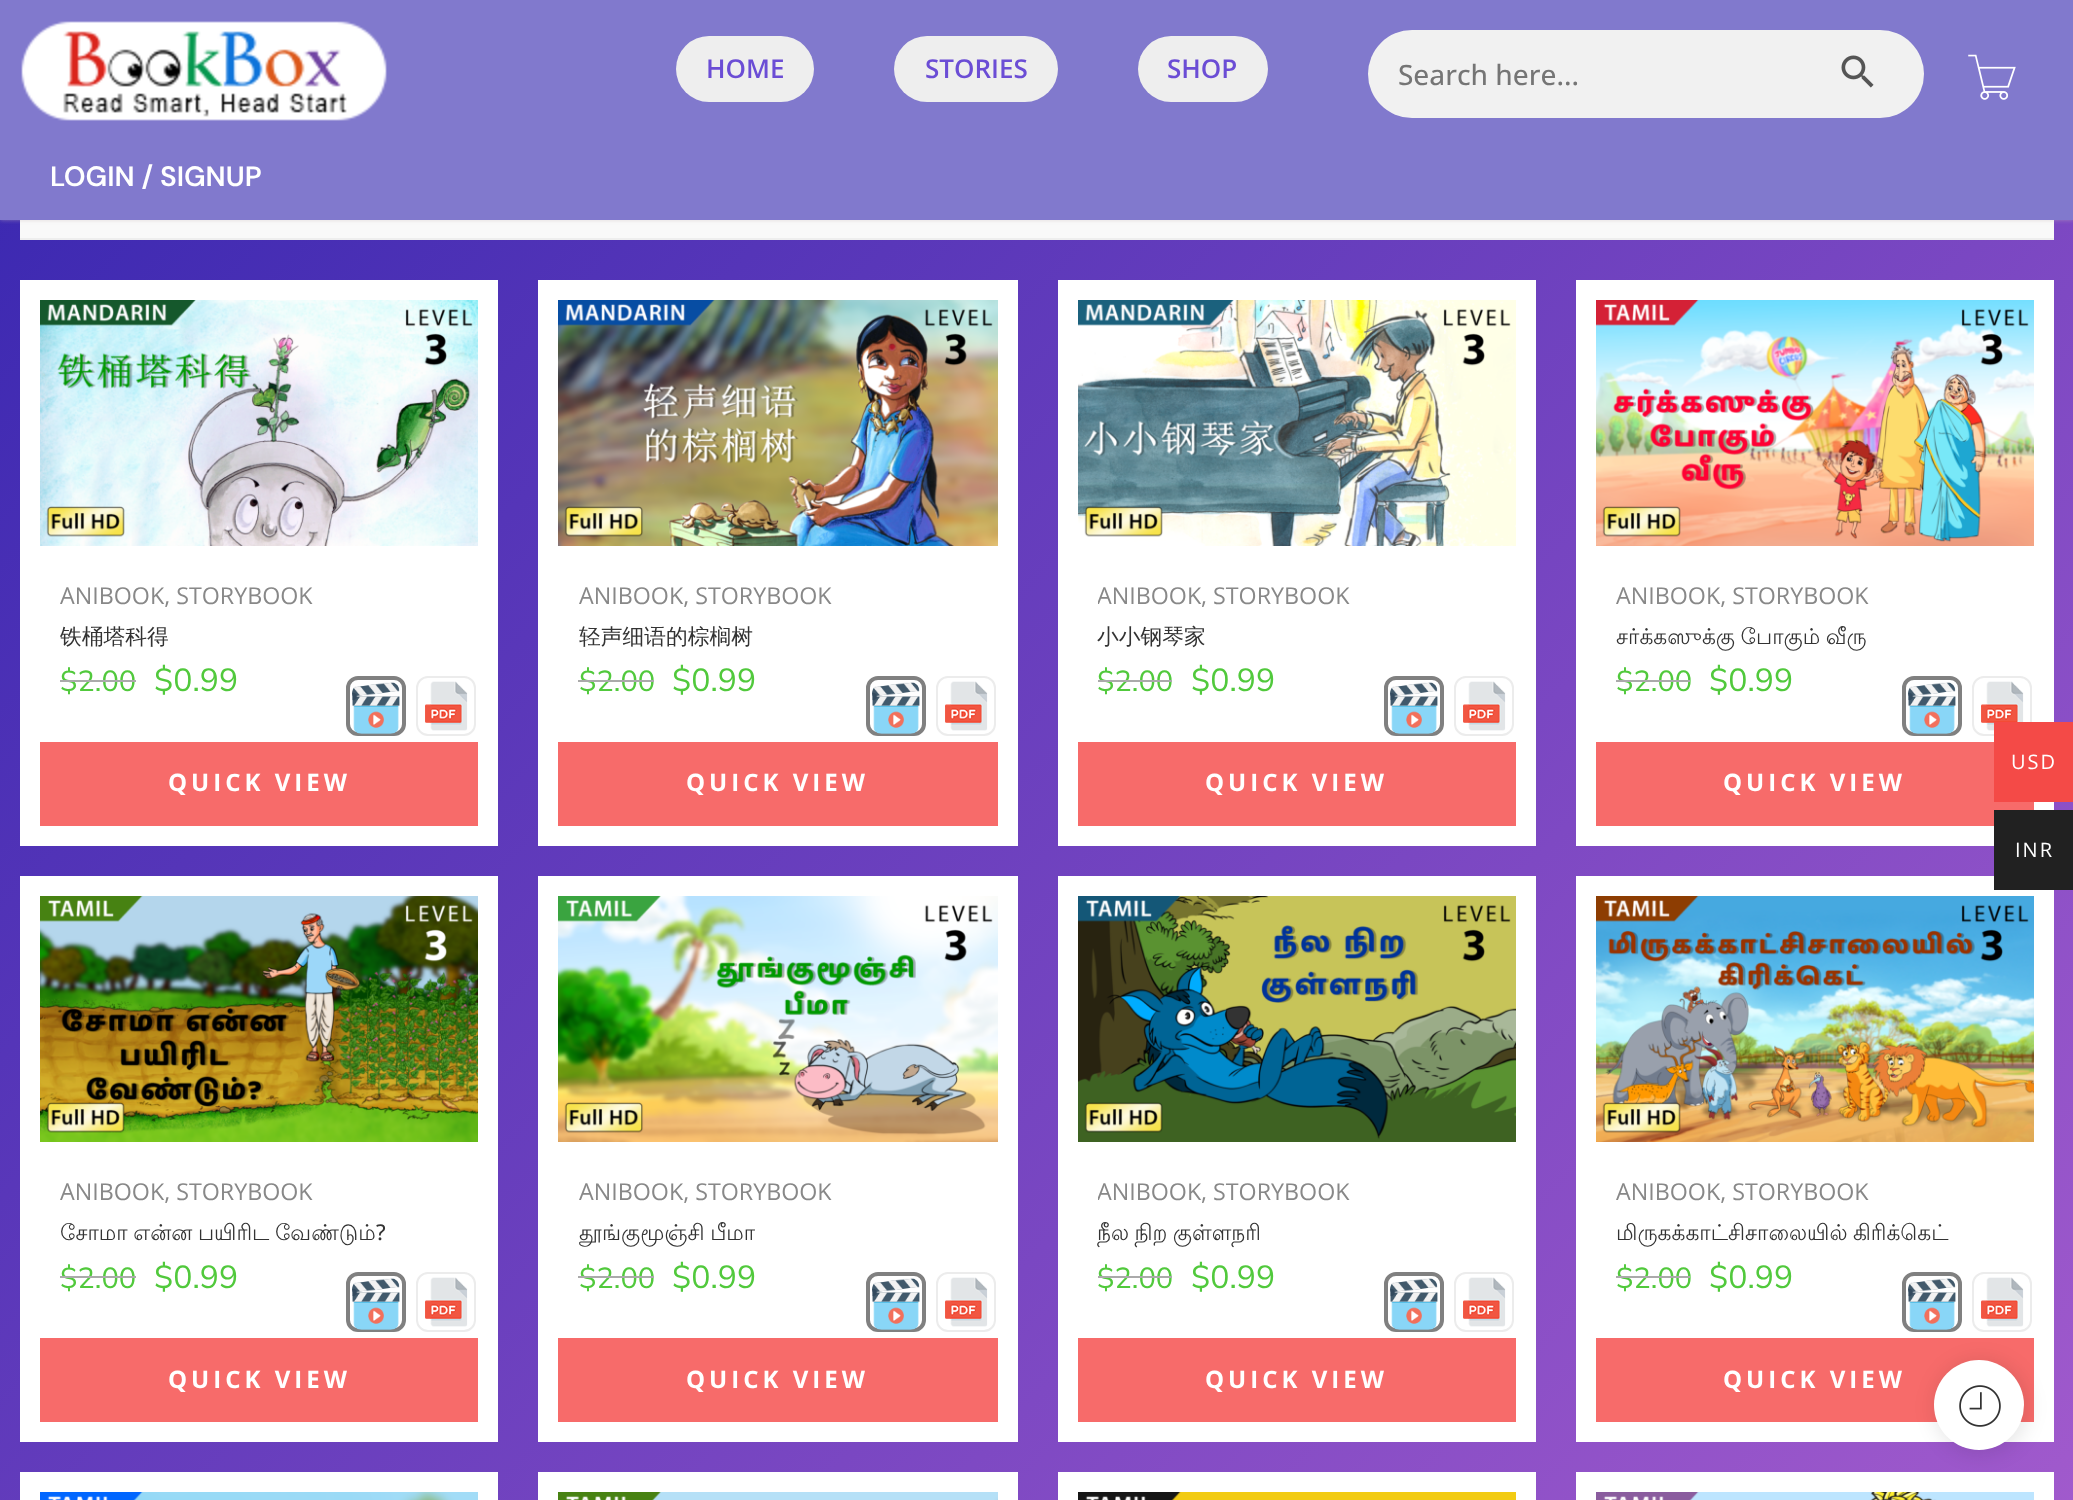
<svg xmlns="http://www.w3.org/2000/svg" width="2073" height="1500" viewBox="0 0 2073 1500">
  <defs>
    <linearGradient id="g1" gradientUnits="userSpaceOnUse" x1="-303" y1="75" x2="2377" y2="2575"><stop offset="0" stop-color="#3023ae"/><stop offset="1" stop-color="#c86dd7"/></linearGradient>
    <clipPath id="clip1"><path d="M1098 582h398v28H1098z"/></clipPath>
    <clipPath id="clip2"><path d="M1098 1178h398v28H1098z"/></clipPath>
  </defs>
  <rect width="100%" height="100%" fill="#fff"/>
  <path d="M0 220h2073v1280H0z" fill="url(#g1)"/>
  <path d="M20 220h2034v18H20z" fill="#f9f9f9"/>
  <path d="M0 0h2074v220H0z" fill="#cabcbc80" filter="blur(2px)"/>
  <path d="M0 0h2073v220H0z" fill="#8179cd"/>
  <image x="21" y="21" width="366" height="100" href="img/1.png"/>
  <rect x="676" y="36" width="138" height="66" rx="33" fill="#eee"/>
  <rect x="894" y="36" width="164" height="66" rx="33" fill="#eee"/>
  <rect x="1138" y="36" width="130" height="66" rx="33" fill="#eee"/>
  <rect x="1368" y="30" width="556" height="88" rx="44" fill="#f1f1f1"/>
  <image x="1841" y="55" width="33" height="33" href="img/2.png"/>
  <image x="1968" y="54" width="48" height="46" href="img/3.png"/>
  <path d="M20 238h2034v2H20z" fill="#eee"/>
  <path d="M20 280h478v566H20z" fill="#fff"/>
  <image x="40" y="300" width="438" height="246" href="img/4.png"/>
  <rect x="348" y="678" width="56" height="56" rx="10" fill="none" stroke="#808080" stroke-width="4"/>
  <image x="352" y="682" width="48" height="52" href="img/5.png"/>
  <rect x="417" y="677" width="58" height="58" rx="11" fill="none" stroke="#ececec" stroke-width="2"/>
  <image x="425" y="681" width="43" height="50" href="img/6.png"/>
  <path d="M40 742h438v84H40z" fill="#f76b6a"/>
  <path d="M538 280h480v566H538z" fill="#fff"/>
  <image x="558" y="300" width="440" height="246" href="img/7.png"/>
  <rect x="868" y="678" width="56" height="56" rx="10" fill="none" stroke="#808080" stroke-width="4"/>
  <image x="872" y="682" width="48" height="52" href="img/5.png"/>
  <rect x="937" y="677" width="58" height="58" rx="11" fill="none" stroke="#ececec" stroke-width="2"/>
  <image x="945" y="681" width="43" height="50" href="img/8.png"/>
  <path d="M558 742h440v84H558z" fill="#f76b6a"/>
  <path d="M1058 280h478v566H1058z" fill="#fff"/>
  <image x="1078" y="300" width="438" height="246" href="img/9.png"/>
  <rect x="1386" y="678" width="56" height="56" rx="10" fill="none" stroke="#808080" stroke-width="4"/>
  <image x="1390" y="682" width="48" height="52" href="img/10.png"/>
  <rect x="1455" y="677" width="58" height="58" rx="11" fill="none" stroke="#ececec" stroke-width="2"/>
  <image x="1463" y="681" width="43" height="50" href="img/8.png"/>
  <path d="M1078 742h438v84H1078z" fill="#f76b6a"/>
  <path d="M1576 280h478v566H1576z" fill="#fff"/>
  <image x="1596" y="300" width="438" height="246" href="img/11.png"/>
  <rect x="1904" y="678" width="56" height="56" rx="10" fill="none" stroke="#808080" stroke-width="4"/>
  <image x="1908" y="682" width="48" height="52" href="img/5.png"/>
  <rect x="1973" y="677" width="58" height="58" rx="11" fill="none" stroke="#ececec" stroke-width="2"/>
  <image x="1981" y="681" width="43" height="50" href="img/8.png"/>
  <path d="M1596 742h438v84H1596z" fill="#f76b6a"/>
  <path d="M20 876h478v566H20z" fill="#fff"/>
  <image x="40" y="896" width="438" height="246" href="img/12.png"/>
  <rect x="348" y="1274" width="56" height="56" rx="10" fill="none" stroke="#808080" stroke-width="4"/>
  <image x="352" y="1278" width="48" height="52" href="img/13.png"/>
  <rect x="417" y="1273" width="58" height="58" rx="11" fill="none" stroke="#ececec" stroke-width="2"/>
  <image x="425" y="1277" width="43" height="50" href="img/14.png"/>
  <path d="M40 1338h438v84H40z" fill="#f76b6a"/>
  <path d="M538 876h480v566H538z" fill="#fff"/>
  <image x="558" y="896" width="440" height="246" href="img/15.png"/>
  <rect x="868" y="1274" width="56" height="56" rx="10" fill="none" stroke="#808080" stroke-width="4"/>
  <image x="872" y="1278" width="48" height="52" href="img/13.png"/>
  <rect x="937" y="1273" width="58" height="58" rx="11" fill="none" stroke="#ececec" stroke-width="2"/>
  <image x="945" y="1277" width="43" height="50" href="img/16.png"/>
  <path d="M558 1338h440v84H558z" fill="#f76b6a"/>
  <path d="M1058 876h478v566H1058z" fill="#fff"/>
  <image x="1078" y="896" width="438" height="246" href="img/17.png"/>
  <rect x="1386" y="1274" width="56" height="56" rx="10" fill="none" stroke="#808080" stroke-width="4"/>
  <image x="1390" y="1278" width="48" height="52" href="img/18.png"/>
  <rect x="1455" y="1273" width="58" height="58" rx="11" fill="none" stroke="#ececec" stroke-width="2"/>
  <image x="1463" y="1277" width="43" height="50" href="img/16.png"/>
  <path d="M1078 1338h438v84H1078z" fill="#f76b6a"/>
  <path d="M1576 876h478v566H1576z" fill="#fff"/>
  <image x="1596" y="896" width="438" height="246" href="img/19.png"/>
  <rect x="1904" y="1274" width="56" height="56" rx="10" fill="none" stroke="#808080" stroke-width="4"/>
  <image x="1908" y="1278" width="48" height="52" href="img/13.png"/>
  <rect x="1973" y="1273" width="58" height="58" rx="11" fill="none" stroke="#ececec" stroke-width="2"/>
  <image x="1981" y="1277" width="43" height="50" href="img/16.png"/>
  <path d="M1596 1338h438v84H1596z" fill="#f76b6a"/>
  <path d="M20 1472h478v28H20z" fill="#fff"/>
  <image x="40" y="1492" width="438" height="8" href="img/20.png"/>
  <path d="M538 1472h480v28H538z" fill="#fff"/>
  <image x="558" y="1492" width="440" height="8" href="img/21.png"/>
  <path d="M1058 1472h478v28H1058z" fill="#fff"/>
  <image x="1078" y="1492" width="438" height="8" href="img/22.png"/>
  <path d="M1576 1472h478v28H1576z" fill="#fff"/>
  <image x="1596" y="1492" width="438" height="8" href="img/23.png"/>
  <path d="M1994 722h79v80H1994z" fill="#f44a47"/>
  <path d="M1994 810h79v80H1994z" fill="#212121"/>
  <rect x="1934" y="1360" width="94" height="94" rx="47" fill="#0000001a" filter="blur(10px)"/>
  <circle cx="1979" cy="1405" r="45" fill="#fff"/>
  <image x="1959" y="1385" width="42" height="42" href="img/24.png"/>
  <g font-family="Open Sans" font-size="26" font-weight="600" fill="#6b4dd5">
    <text x="706" y="78">HOME</text>
    <text x="925" y="78">STORIES</text>
    <text x="1167" y="78">SHOP</text>
  </g>
  <text x="1398" y="85" font-family="Open Sans" font-size="28" font-weight="500" fill="#757575">Search here...</text>
  <text x="50" y="186" font-family="DM Sans" font-size="28" font-weight="600" fill="#fff">LOGIN / SIGNUP</text>
  <text x="60" y="604" font-family="Open Sans" font-size="23.25" fill="#888">ANIBOOK, STORYBOOK</text>
  <text x="60" y="644" font-family="WenQuanYi Zen Hei" font-size="21.75" font-weight="500" fill="#333">铁桶塔科得</text>
  <text x="60" y="691" font-family="Nunito Sans" font-size="29" fill="#51c93c">$2.00</text>
  <path d="M60 680h76v2H60z" fill="#aaa"/>
  <text x="154" y="691" font-family="Nunito Sans" font-size="32" fill="#51c93c">$0.99</text>
  <text x="168" y="791" font-family="Open Sans" font-size="24" font-weight="bold" letter-spacing="4" fill="#fff">QUICK VIEW</text>
  <text x="579" y="604" font-family="Open Sans" font-size="23.25" fill="#888">ANIBOOK, STORYBOOK</text>
  <text x="579" y="644" font-family="WenQuanYi Zen Hei" font-size="21.75" font-weight="500" fill="#333">轻声细语的棕榈树</text>
  <text x="579" y="691" font-family="Nunito Sans" font-size="29" fill="#51c93c">$2.00</text>
  <path d="M578 680h76v2H578z" fill="#aaa"/>
  <text x="672" y="691" font-family="Nunito Sans" font-size="32" fill="#51c93c">$0.99</text>
  <text x="686" y="791" font-family="Open Sans" font-size="24" font-weight="bold" letter-spacing="4" fill="#fff">QUICK VIEW</text>
  <g clip-path="url(#clip1)">
    <text x="1097" y="604" font-family="Open Sans" font-size="23.25" fill="#888">ANIBOOK</text>
  </g>
  <text x="1201" y="604" font-family="Open Sans" font-size="23.25" fill="#888">, STORYBOOK</text>
  <text x="1097" y="644" font-family="WenQuanYi Zen Hei" font-size="21.75" font-weight="500" fill="#333">小小钢琴家</text>
  <text x="1097" y="691" font-family="Nunito Sans" font-size="29" fill="#51c93c">$2.00</text>
  <path d="M1098 680h74v2H1098z" fill="#aaa"/>
  <text x="1191" y="691" font-family="Nunito Sans" font-size="32" fill="#51c93c">$0.99</text>
  <text x="1205" y="791" font-family="Open Sans" font-size="24" font-weight="bold" letter-spacing="4" fill="#fff">QUICK VIEW</text>
  <text x="1616" y="604" font-family="Open Sans" font-size="23.25" fill="#888">ANIBOOK, STORYBOOK</text>
  <text x="1616" y="644" word-spacing="-1" font-family="Lohit Tamil" font-size="21.75" fill="#333">சர்க்கஸுக்கு போகும் வீரு</text>
  <text x="1616" y="691" font-family="Nunito Sans" font-size="29" fill="#51c93c">$2.00</text>
  <path d="M1616 680h74v2H1616z" fill="#aaa"/>
  <text x="1709" y="691" font-family="Nunito Sans" font-size="32" fill="#51c93c">$0.99</text>
  <text x="1723" y="791" font-family="Open Sans" font-size="24" font-weight="bold" letter-spacing="4" fill="#fff">QUICK VIEW</text>
  <text x="60" y="1200" font-family="Open Sans" font-size="23.25" fill="#888">ANIBOOK, STORYBOOK</text>
  <text x="60" y="1240" word-spacing="-1" font-family="Lohit Tamil" font-size="21.75" fill="#333">சோமா என்ன பயிரிட வேண்டும்</text>
  <text x="376" y="1240" font-family="Open Sans" font-size="21.75" font-weight="500" fill="#333">?</text>
  <text x="60" y="1288" font-family="Nunito Sans" font-size="29" fill="#51c93c">$2.00</text>
  <path d="M60 1276h76v2H60z" fill="#aaa"/>
  <text x="154" y="1288" font-family="Nunito Sans" font-size="32" fill="#51c93c">$0.99</text>
  <text x="168" y="1388" font-family="Open Sans" font-size="24" font-weight="bold" letter-spacing="4" fill="#fff">QUICK VIEW</text>
  <text x="579" y="1200" font-family="Open Sans" font-size="23.25" fill="#888">ANIBOOK, STORYBOOK</text>
  <text x="579" y="1240" word-spacing="-1" font-family="Lohit Tamil" font-size="21.75" fill="#333">தூங்குமூஞ்சி பீமா</text>
  <text x="579" y="1288" font-family="Nunito Sans" font-size="29" fill="#51c93c">$2.00</text>
  <path d="M578 1276h76v2H578z" fill="#aaa"/>
  <text x="672" y="1288" font-family="Nunito Sans" font-size="32" fill="#51c93c">$0.99</text>
  <text x="686" y="1388" font-family="Open Sans" font-size="24" font-weight="bold" letter-spacing="4" fill="#fff">QUICK VIEW</text>
  <g clip-path="url(#clip2)">
    <text x="1097" y="1200" font-family="Open Sans" font-size="23.25" fill="#888">ANIBOOK</text>
  </g>
  <text x="1201" y="1200" font-family="Open Sans" font-size="23.25" fill="#888">, STORYBOOK</text>
  <text x="1097" y="1240" word-spacing="-1" font-family="Lohit Tamil" font-size="21.75" fill="#333">நீல நிற குள்ளநரி</text>
  <text x="1097" y="1288" font-family="Nunito Sans" font-size="29" fill="#51c93c">$2.00</text>
  <path d="M1098 1276h74v2H1098z" fill="#aaa"/>
  <text x="1191" y="1288" font-family="Nunito Sans" font-size="32" fill="#51c93c">$0.99</text>
  <text x="1205" y="1388" font-family="Open Sans" font-size="24" font-weight="bold" letter-spacing="4" fill="#fff">QUICK VIEW</text>
  <text x="1616" y="1200" font-family="Open Sans" font-size="23.25" fill="#888">ANIBOOK, STORYBOOK</text>
  <text x="1616" y="1240" word-spacing="-1" font-family="Lohit Tamil" font-size="21.75" fill="#333">மிருகக்காட்சிசாலையில் கிரிக்கெட்</text>
  <text x="1616" y="1288" font-family="Nunito Sans" font-size="29" fill="#51c93c">$2.00</text>
  <path d="M1616 1276h74v2H1616z" fill="#aaa"/>
  <text x="1709" y="1288" font-family="Nunito Sans" font-size="32" fill="#51c93c">$0.99</text>
  <text x="1723" y="1388" font-family="Open Sans" font-size="24" font-weight="bold" letter-spacing="4" fill="#fff">QUICK VIEW</text>
  <g font-family="Open Sans" font-size="20" letter-spacing="2" fill="#fff">
    <text x="2011" y="769">USD</text>
    <text x="2015" y="857">INR</text>
  </g>
</svg>
